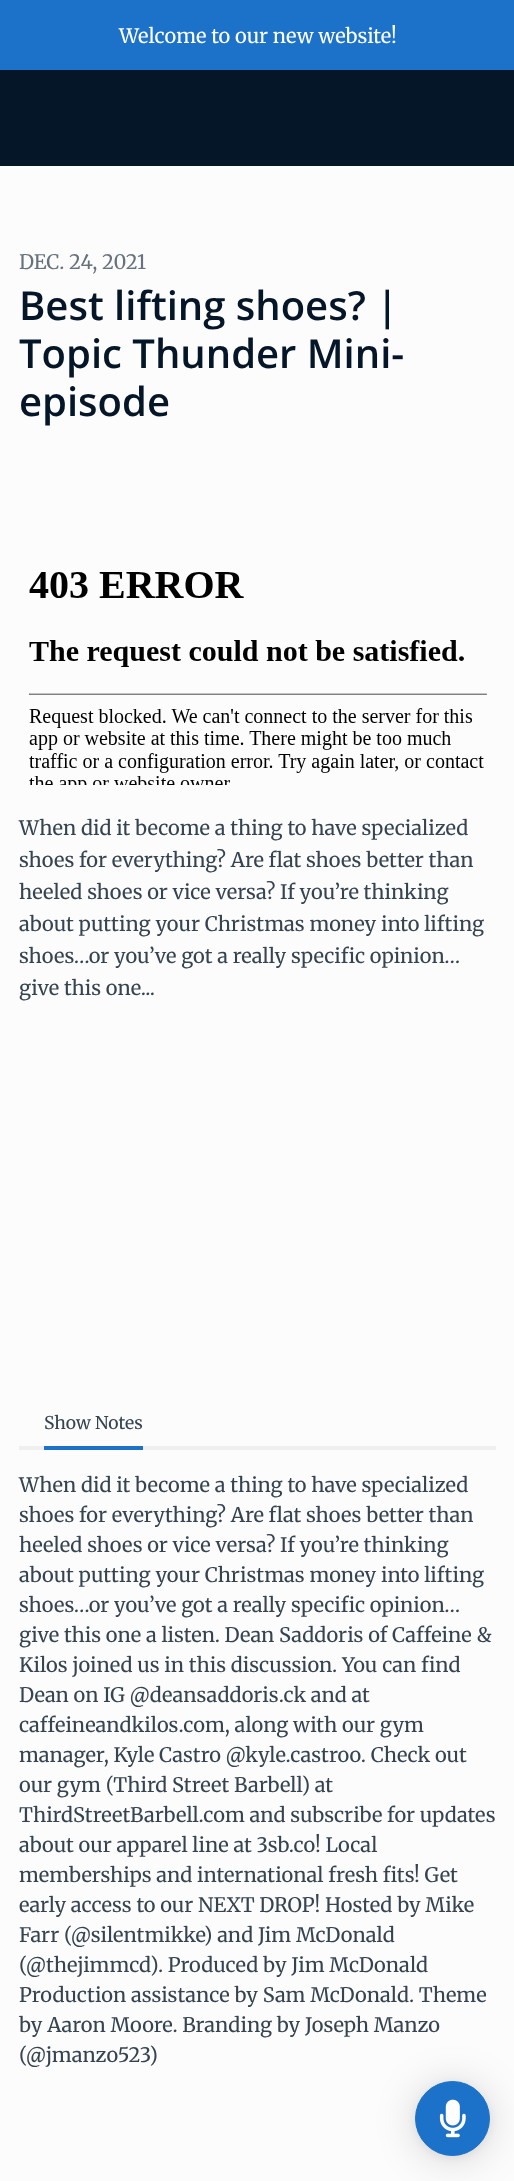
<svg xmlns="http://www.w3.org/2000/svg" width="514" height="2181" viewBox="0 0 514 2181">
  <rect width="100%" height="100%" fill="#fcfcfc"/>
  <path d="M0 0h514v70H0z" fill="#1c71c8"/>
  <path d="M0 70h514v96H0z" fill="#051628"/>
  <image x="29" y="572" width="458" height="213" href="img/1.png"/>
  <path d="M19 1446h477v4H19z" fill="#efefef"/>
  <path d="M44 1446h99v4H44z" fill="#1c71c8"/>
  <rect x="415" y="2084" width="75" height="75" rx="37.5" fill="#00000029" filter="blur(20px)"/>
  <rect x="415" y="2083" width="75" height="75" rx="37.5" fill="#0000000f" filter="blur(4px)"/>
  <circle cx="452.5" cy="2118.5" r="37" fill="#1c71c8" stroke="#1c71c8"/>
  <image x="439" y="2099" width="27" height="39" href="img/2.png"/>
  <text x="119" y="43" font-family="Merriweather" font-size="20" fill="#fff">Welcome to our new website!</text>
  <text x="19" y="269" font-family="Merriweather" font-size="20" fill="#68727d">DEC. 24, 2021</text>
  <g font-family="Open Sans" font-size="40" font-weight="600" fill="#051628">
    <text x="19" y="320">Best lifting shoes? |</text>
    <text x="19" y="368">Topic Thunder Mini-</text>
    <text x="19" y="416">episode</text>
  </g>
  <g font-family="Merriweather" font-size="20" fill="#364452">
    <text x="19" y="835">When did it become a thing to have specialized</text>
    <text x="19" y="867">shoes for everything? Are flat shoes better than</text>
    <text x="19" y="899">heeled shoes or vice versa? If you’re thinking</text>
    <text x="19" y="931">about putting your Christmas money into lifting</text>
    <text x="19" y="963">shoes…or you’ve got a really specific opinion…</text>
    <text x="19" y="995">give this one...</text>
  </g>
  <text x="44" y="1429" font-family="Merriweather" font-size="17.5" fill="#364452">Show Notes</text>
  <g font-family="Merriweather" font-size="20" fill="#364452">
    <text x="19" y="1492">When did it become a thing to have specialized</text>
    <text x="19" y="1522">shoes for everything? Are flat shoes better than</text>
    <text x="19" y="1552">heeled shoes or vice versa? If you’re thinking</text>
    <text x="19" y="1582">about putting your Christmas money into lifting</text>
    <text x="19" y="1612">shoes…or you’ve got a really specific opinion…</text>
    <text x="19" y="1642">give this one a listen. Dean Saddoris of Caffeine &amp;</text>
    <text x="19" y="1672">Kilos joined us in this discussion. You can find</text>
    <text x="19" y="1702">Dean on IG @deansaddoris.ck and at</text>
    <text x="19" y="1732">caffeineandkilos.com, along with our gym</text>
    <text x="19" y="1762">manager, Kyle Castro @kyle.castroo. Check out</text>
    <text x="19" y="1792">our gym (Third Street Barbell) at</text>
    <text x="19" y="1822">ThirdStreetBarbell.com and subscribe for updates</text>
    <text x="19" y="1852">about our apparel line at 3sb.co! Local</text>
    <text x="19" y="1882">memberships and international fresh fits! Get</text>
    <text x="19" y="1912">early access to our NEXT DROP! Hosted by Mike</text>
    <text x="19" y="1942">Farr (@silentmikke) and Jim McDonald</text>
    <text x="19" y="1972">(@thejimmcd). Produced by Jim McDonald</text>
    <text x="19" y="2002">Production assistance by Sam McDonald. Theme</text>
    <text x="19" y="2032">by Aaron Moore. Branding by Joseph Manzo</text>
    <text x="19" y="2062">(@jmanzo523)</text>
  </g>
</svg>
